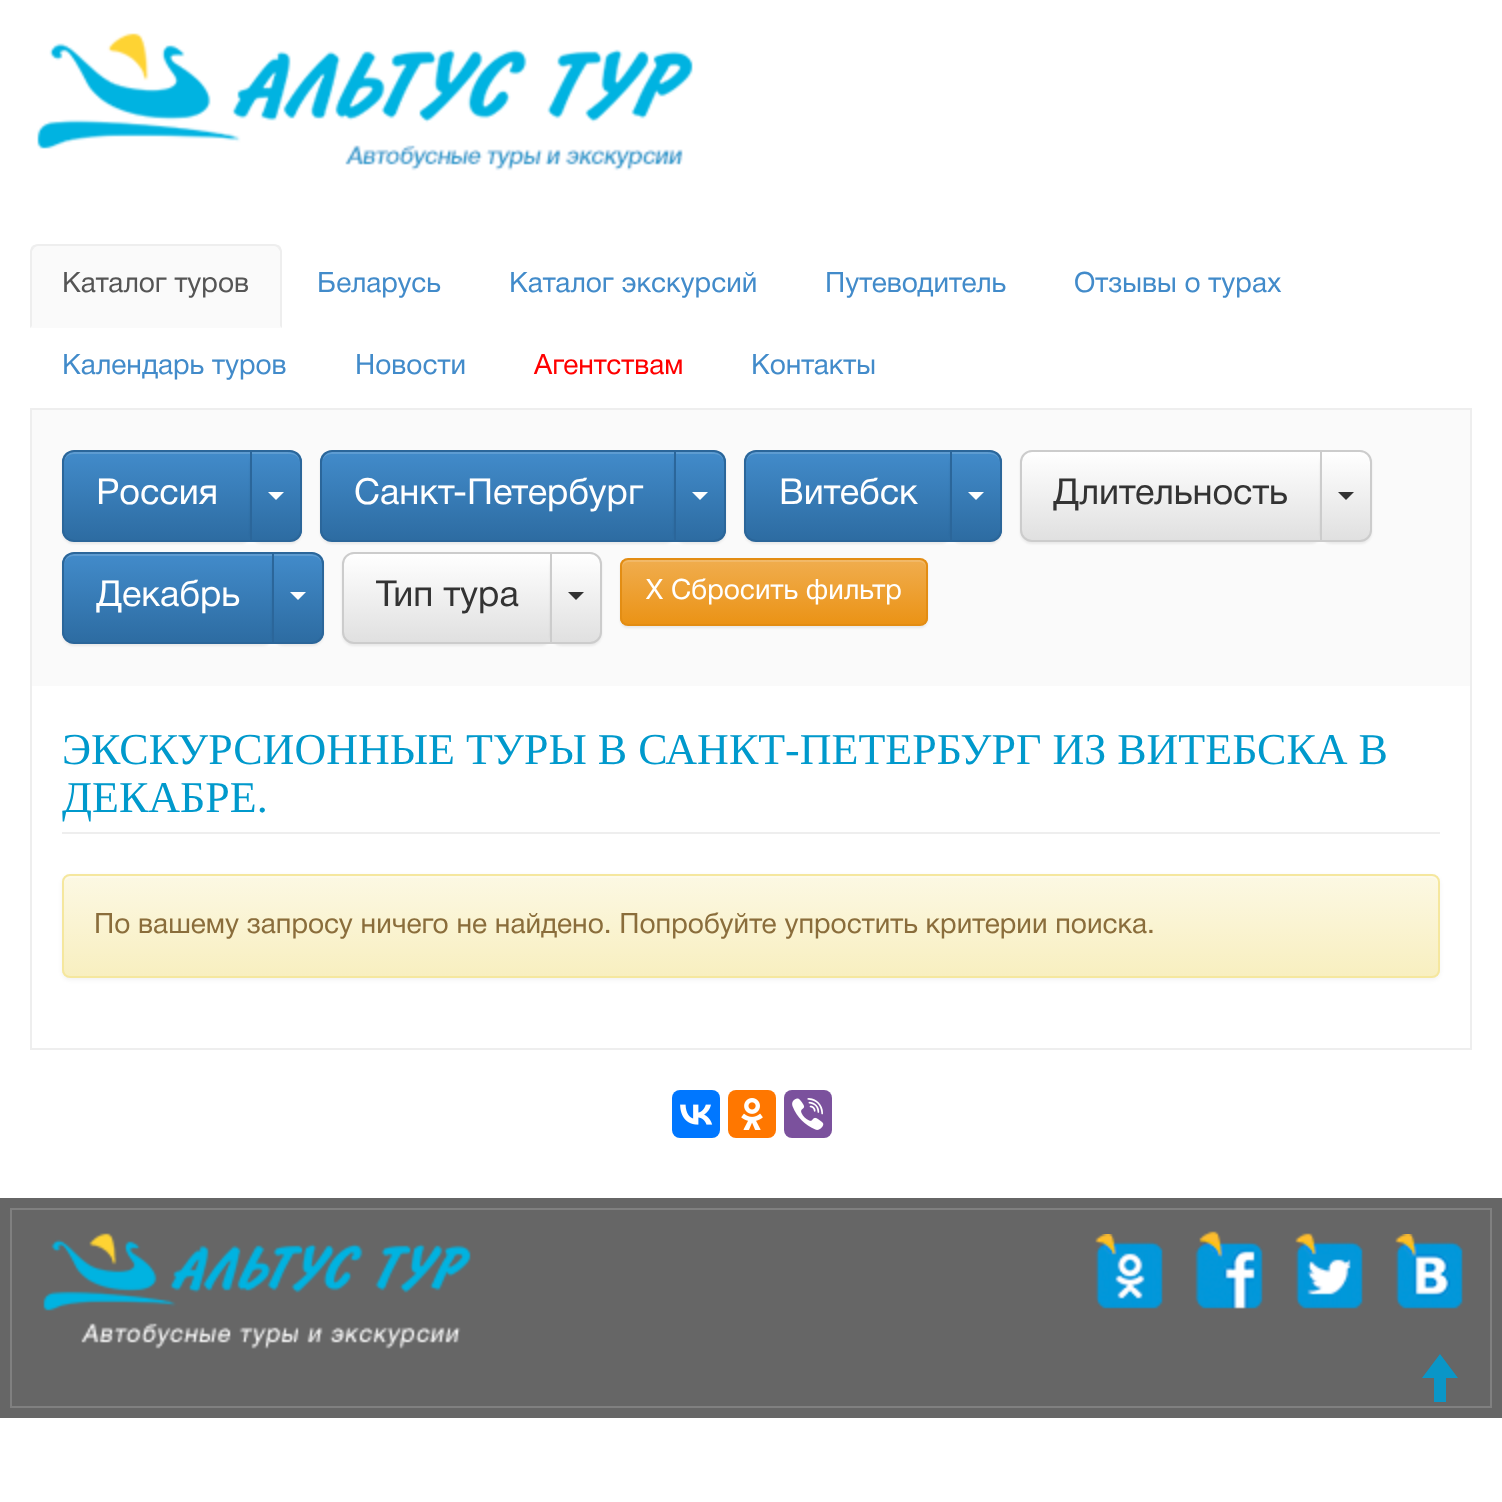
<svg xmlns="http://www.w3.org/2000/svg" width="1502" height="1502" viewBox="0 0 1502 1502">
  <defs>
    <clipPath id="clip1"><path d="M74 450H252V542H74C67.5 542 62 536.5 62 530V462C62 455.5 67.5 450 74 450Z"/></clipPath>
    <linearGradient id="g1" gradientUnits="userSpaceOnUse" x1="157" y1="452" x2="157" y2="540"><stop offset="0" stop-color="#428bca"/><stop offset="1" stop-color="#2d6ca2"/></linearGradient>
    <clipPath id="clip2"><path d="M250 450H290C296.5 450 302 455.5 302 462V530C302 536.5 296.5 542 290 542H250Z"/></clipPath>
    <linearGradient id="g2" gradientUnits="userSpaceOnUse" x1="276" y1="452" x2="276" y2="540"><stop offset="0" stop-color="#428bca"/><stop offset="1" stop-color="#2d6ca2"/></linearGradient>
    <clipPath id="clip3"><path d="M332 450H676V542H332C325.5 542 320 536.5 320 530V462C320 455.5 325.5 450 332 450Z"/></clipPath>
    <linearGradient id="g3" gradientUnits="userSpaceOnUse" x1="498" y1="452" x2="498" y2="540"><stop offset="0" stop-color="#428bca"/><stop offset="1" stop-color="#2d6ca2"/></linearGradient>
    <clipPath id="clip4"><path d="M674 450H714C720.5 450 726 455.5 726 462V530C726 536.5 720.5 542 714 542H674Z"/></clipPath>
    <linearGradient id="g4" gradientUnits="userSpaceOnUse" x1="700" y1="452" x2="700" y2="540"><stop offset="0" stop-color="#428bca"/><stop offset="1" stop-color="#2d6ca2"/></linearGradient>
    <clipPath id="clip5"><path d="M756 450H952V542H756C749.5 542 744 536.5 744 530V462C744 455.5 749.5 450 756 450Z"/></clipPath>
    <linearGradient id="g5" gradientUnits="userSpaceOnUse" x1="848" y1="452" x2="848" y2="540"><stop offset="0" stop-color="#428bca"/><stop offset="1" stop-color="#2d6ca2"/></linearGradient>
    <clipPath id="clip6"><path d="M950 450H990C996.5 450 1002 455.5 1002 462V530C1002 536.5 996.5 542 990 542H950Z"/></clipPath>
    <linearGradient id="g6" gradientUnits="userSpaceOnUse" x1="976" y1="452" x2="976" y2="540"><stop offset="0" stop-color="#428bca"/><stop offset="1" stop-color="#2d6ca2"/></linearGradient>
    <clipPath id="clip7"><path d="M1032 450H1322V542H1032C1025.5 542 1020 536.5 1020 530V462C1020 455.5 1025.5 450 1032 450Z"/></clipPath>
    <linearGradient id="g7" gradientUnits="userSpaceOnUse" x1="1171" y1="452" x2="1171" y2="540"><stop offset="0" stop-color="#fff"/><stop offset="1" stop-color="#e0e0e0"/></linearGradient>
    <clipPath id="clip8"><path d="M1320 450H1360C1366.5 450 1372 455.5 1372 462V530C1372 536.5 1366.5 542 1360 542H1320Z"/></clipPath>
    <linearGradient id="g8" gradientUnits="userSpaceOnUse" x1="1346" y1="452" x2="1346" y2="540"><stop offset="0" stop-color="#fff"/><stop offset="1" stop-color="#e0e0e0"/></linearGradient>
    <clipPath id="clip9"><path d="M74 552H274V644H74C67.5 644 62 638.5 62 632V564C62 557.5 67.5 552 74 552Z"/></clipPath>
    <linearGradient id="g9" gradientUnits="userSpaceOnUse" x1="168" y1="554" x2="168" y2="642"><stop offset="0" stop-color="#428bca"/><stop offset="1" stop-color="#2d6ca2"/></linearGradient>
    <clipPath id="clip10"><path d="M272 552H312C318.5 552 324 557.5 324 564V632C324 638.5 318.5 644 312 644H272Z"/></clipPath>
    <linearGradient id="g10" gradientUnits="userSpaceOnUse" x1="298" y1="554" x2="298" y2="642"><stop offset="0" stop-color="#428bca"/><stop offset="1" stop-color="#2d6ca2"/></linearGradient>
    <clipPath id="clip11"><path d="M354 552H552V644H354C347.5 644 342 638.5 342 632V564C342 557.5 347.5 552 354 552Z"/></clipPath>
    <linearGradient id="g11" gradientUnits="userSpaceOnUse" x1="447" y1="554" x2="447" y2="642"><stop offset="0" stop-color="#fff"/><stop offset="1" stop-color="#e0e0e0"/></linearGradient>
    <clipPath id="clip12"><path d="M550 552H590C596.5 552 602 557.5 602 564V632C602 638.5 596.5 644 590 644H550Z"/></clipPath>
    <linearGradient id="g12" gradientUnits="userSpaceOnUse" x1="576" y1="554" x2="576" y2="642"><stop offset="0" stop-color="#fff"/><stop offset="1" stop-color="#e0e0e0"/></linearGradient>
    <clipPath id="clip13"><rect x="620" y="558" width="308" height="68" rx="8"/></clipPath>
    <linearGradient id="g13" gradientUnits="userSpaceOnUse" x1="774" y1="560" x2="774" y2="624"><stop offset="0" stop-color="#f0ad4e"/><stop offset="1" stop-color="#eb9316"/></linearGradient>
    <clipPath id="clip14"><rect x="62" y="874" width="1378" height="104" rx="8"/></clipPath>
    <linearGradient id="g14" gradientUnits="userSpaceOnUse" x1="751" y1="876" x2="751" y2="976"><stop offset="0" stop-color="#fcf8e3"/><stop offset="1" stop-color="#f8efc0"/></linearGradient>
  </defs>
  <rect width="100%" height="100%" fill="#fff"/>
  <image x="37" y="33" width="656" height="138" href="img/1.png"/>
  <path d="M30 408h1442v2H30z" fill="#eee"/>
  <path d="M38 244H274C278.5 244 282 247.5 282 252V328H30V252C30 247.5 33.5 244 38 244Z" fill="#fafafa"/>
  <path d="M38 244C36 244 34 245 32 246L34 248C35 247 36 246 38 246H274C276 246 277 247 278 248L280 246C278 245 276 244 274 244Z" fill="#eee"/>
  <path d="M282 328V252C282 250 281 248 280 246L278 248L280 251V326Z" fill="#eee"/>
  <path d="M30 328L32 326V251L34 248L32 246C31 248 30 250 30 252Z" fill="#eee"/>
  <path d="M32 410h1438v276H32z" fill="#fafafa"/>
  <path d="M1470 410h2v276H1470z" fill="#eee"/>
  <path d="M30 410h2v276H30z" fill="#eee"/>
  <rect x="62" y="452" width="190" height="92" rx="12" fill="#00000012" filter="blur(1px)"/>
  <g clip-path="url(#clip1)">
    <path d="M62 452h188v88H62z" fill="url(#g1)"/>
  </g>
  <path d="M74 454H250V452H74C68 452 64 456 64 462V464C64 458 68 454 74 454Z" fill="#ffffff26"/>
  <path d="M74 451H251V541H74C68 541 63 536 63 530V462C63 456 68 451 74 451Z" fill="none" stroke="#2b669a" stroke-width="2"/>
  <rect x="250" y="452" width="52" height="92" rx="12" fill="#00000012" filter="blur(1px)"/>
  <g clip-path="url(#clip2)">
    <path d="M252 452h50v88H252z" fill="url(#g2)"/>
  </g>
  <path d="M252 454H290C296 454 300 458 300 464C300 450 288 452 277 452H252Z" fill="#5e9cd1"/>
  <path d="M251 451H290C296 451 301 456 301 462V530C301 536 296 541 290 541H251Z" fill="none" stroke="#2b669a" stroke-width="2"/>
  <path d="M268 492H284L276 500Z" fill="#fff"/>
  <rect x="320" y="452" width="356" height="92" rx="12" fill="#00000012" filter="blur(1px)"/>
  <g clip-path="url(#clip3)">
    <path d="M320 452h354v88H320z" fill="url(#g3)"/>
  </g>
  <path d="M332 454H674V452H332C325 452 322 458 322 464C322 458 326 454 332 454Z" fill="#5e9cd2"/>
  <path d="M332 451H675V541H332C326 541 321 536 321 530V462C321 456 326 451 332 451Z" fill="none" stroke="#2b669a" stroke-width="2"/>
  <rect x="674" y="452" width="52" height="92" rx="12" fill="#00000012" filter="blur(1px)"/>
  <g clip-path="url(#clip4)">
    <path d="M676 452h50v88H676z" fill="url(#g4)"/>
  </g>
  <path d="M676 454H714C720 454 724 458 724 464C724 450 712 452 701 452H676Z" fill="#5e9cd1"/>
  <path d="M675 451H714C720 451 725 456 725 462V530C725 536 720 541 714 541H675Z" fill="none" stroke="#2b669a" stroke-width="2"/>
  <path d="M692 492H708L700 500Z" fill="#fff"/>
  <rect x="744" y="452" width="208" height="92" rx="12" fill="#00000012" filter="blur(1px)"/>
  <g clip-path="url(#clip5)">
    <path d="M744 452h206v88H744z" fill="url(#g5)"/>
  </g>
  <path d="M756 454H950V452H756C750 452 746 456 746 462V464C746 458 750 454 756 454Z" fill="#ffffff26"/>
  <path d="M756 451H951V541H756C750 541 745 536 745 530V462C745 456 750 451 756 451Z" fill="none" stroke="#2b669a" stroke-width="2"/>
  <rect x="950" y="452" width="52" height="92" rx="12" fill="#00000012" filter="blur(1px)"/>
  <g clip-path="url(#clip6)">
    <path d="M952 452h50v88H952z" fill="url(#g6)"/>
  </g>
  <path d="M952 454H990C996 454 1000 458 1000 464C1000 450 988 452 977 452H952Z" fill="#5e9cd1"/>
  <path d="M951 451H990C996 451 1001 456 1001 462V530C1001 536 996 541 990 541H951Z" fill="none" stroke="#2b669a" stroke-width="2"/>
  <path d="M968 492H984L976 500Z" fill="#fff"/>
  <rect x="1020" y="452" width="302" height="92" rx="12" fill="#00000012" filter="blur(1px)"/>
  <g clip-path="url(#clip7)">
    <path d="M1020 452h300v88H1020z" fill="url(#g7)"/>
  </g>
  <path d="M1032 451H1321V541H1032C1026 541 1021 536 1021 530V462C1021 456 1026 451 1032 451Z" fill="none" stroke="#ccc" stroke-width="2"/>
  <rect x="1320" y="452" width="52" height="92" rx="12" fill="#00000012" filter="blur(1px)"/>
  <g clip-path="url(#clip8)">
    <path d="M1322 452h50v88H1322z" fill="url(#g8)"/>
  </g>
  <path d="M1321 451H1360C1366 451 1371 456 1371 462V530C1371 536 1366 541 1360 541H1321Z" fill="none" stroke="#ccc" stroke-width="2"/>
  <path d="M1338 492H1354L1346 500Z" fill="#333"/>
  <rect x="62" y="554" width="212" height="92" rx="12" fill="#00000012" filter="blur(1px)"/>
  <g clip-path="url(#clip9)">
    <path d="M62 554h210v88H62z" fill="url(#g9)"/>
  </g>
  <path d="M74 556H272V554H74C68 554 64 558 64 564V566C64 560 68 556 74 556Z" fill="#ffffff26"/>
  <path d="M74 553H273V643H74C68 643 63 638 63 632V564C63 558 68 553 74 553Z" fill="none" stroke="#2b669a" stroke-width="2"/>
  <rect x="272" y="554" width="52" height="92" rx="12" fill="#00000012" filter="blur(1px)"/>
  <g clip-path="url(#clip10)">
    <path d="M274 554h50v88H274z" fill="url(#g10)"/>
  </g>
  <path d="M274 556H312C318 556 322 560 322 566C322 552 310 554 299 554H274Z" fill="#5e9cd1"/>
  <path d="M273 553H312C318 553 323 558 323 564V632C323 638 318 643 312 643H273Z" fill="none" stroke="#2b669a" stroke-width="2"/>
  <path d="M290 592H306L298 600Z" fill="#fff"/>
  <rect x="342" y="554" width="210" height="92" rx="12" fill="#00000012" filter="blur(1px)"/>
  <g clip-path="url(#clip11)">
    <path d="M342 554h208v88H342z" fill="url(#g11)"/>
  </g>
  <path d="M354 553H551V643H354C348 643 343 638 343 632V564C343 558 348 553 354 553Z" fill="none" stroke="#ccc" stroke-width="2"/>
  <rect x="550" y="554" width="52" height="92" rx="12" fill="#00000012" filter="blur(1px)"/>
  <g clip-path="url(#clip12)">
    <path d="M552 554h50v88H552z" fill="url(#g12)"/>
  </g>
  <path d="M551 553H590C596 553 601 558 601 564V632C601 638 596 643 590 643H551Z" fill="none" stroke="#ccc" stroke-width="2"/>
  <path d="M568 592H584L576 600Z" fill="#333"/>
  <rect x="620" y="560" width="308" height="68" rx="8" fill="#00000012" filter="blur(1px)"/>
  <g clip-path="url(#clip13)">
    <path d="M620 560h308v64H620z" fill="url(#g13)"/>
  </g>
  <path d="M628 562H920C923 562 926 565 926 568V566C926 563 923 560 920 560H628C625 560 622 563 622 566V568C622 565 625 562 628 562Z" fill="#ffffff26"/>
  <rect x="621" y="559" width="306" height="66" rx="7" fill="none" stroke="#e38d13" stroke-width="2"/>
  <path d="M1470 686h2v364H1470z" fill="#eee"/>
  <path d="M30 1048h1442v2H30z" fill="#eee"/>
  <path d="M30 686h2v364H30z" fill="#eee"/>
  <path d="M62 832h1378v2H62z" fill="#eee"/>
  <rect x="62" y="876" width="1378" height="104" rx="8" fill="#0000000d" filter="blur(2px)"/>
  <g clip-path="url(#clip14)">
    <path d="M62 876h1378v100H62z" fill="url(#g14)"/>
  </g>
  <path d="M70 878H1432C1435 878 1438 881 1438 884V882C1438 879 1435 876 1432 876H70C67 876 64 879 64 882V884C64 881 67 878 70 878Z" fill="#fdfaea"/>
  <rect x="63" y="875" width="1376" height="102" rx="7" fill="none" stroke="#f5e79e" stroke-width="2"/>
  <rect x="672" y="1090" width="48" height="48" rx="8" fill="#07f"/>
  <image x="680" y="1104" width="33" height="21" href="img/2.png"/>
  <rect x="728" y="1090" width="48" height="48" rx="8" fill="#f70"/>
  <image x="741" y="1098" width="22" height="32" href="img/3.png"/>
  <rect x="784" y="1090" width="48" height="48" rx="8" fill="#7b519d"/>
  <image x="792" y="1098" width="32" height="32" href="img/4.png"/>
  <path d="M0 1198h1502v220H0z" fill="#666"/>
  <path d="M11 1209h1480v198H11z" fill="none" stroke="#808080" stroke-width="2"/>
  <image x="43" y="1233" width="428" height="116" href="img/5.png"/>
  <image x="1095" y="1234" width="68" height="75" href="img/6.png"/>
  <image x="1195" y="1231" width="68" height="78" href="img/7.png"/>
  <image x="1295" y="1233" width="68" height="76" href="img/8.png"/>
  <image x="1395" y="1234" width="68" height="75" href="img/9.png"/>
  <path d="M1422 1378L1440 1354L1458 1378H1446V1402H1434V1378Z" fill="#0a96c7"/>
  <text x="62" y="292" font-family="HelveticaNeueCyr" font-size="28" fill="#555">Каталог туров</text>
  <g font-family="HelveticaNeueCyr" font-size="28" fill="#428bca">
    <text x="317" y="292">Беларусь</text>
    <text x="509" y="292">Каталог экскурсий</text>
    <text x="825" y="292">Путеводитель</text>
    <text x="1074" y="292">Отзывы о турах</text>
    <text x="62" y="374">Календарь туров</text>
    <text x="355" y="374">Новости</text>
  </g>
  <text x="534" y="374" font-family="HelveticaNeueCyr" font-size="28" fill="#f00">Агентствам</text>
  <text x="751" y="374" font-family="HelveticaNeueCyr" font-size="28" fill="#428bca">Контакты</text>
  <g font-family="HelveticaNeueCyr" font-size="36" fill="#fff">
    <text x="96" y="504">Россия</text>
    <text x="354" y="504">Санкт-Петербург</text>
    <text x="779" y="504">Витебск</text>
  </g>
  <text x="1053" y="504" font-family="HelveticaNeueCyr" font-size="36" fill="#333">Длительность</text>
  <text x="96" y="606" font-family="HelveticaNeueCyr" font-size="36" fill="#fff">Декабрь</text>
  <text x="376" y="606" font-family="HelveticaNeueCyr" font-size="36" fill="#333">Тип тура</text>
  <text x="646" y="599" font-family="HelveticaNeueCyr" font-size="28" fill="#fff">Х Сбросить фильтр</text>
  <g font-family="Liberation Serif" font-size="44" fill="#09c">
    <text x="62" y="764">ЭКСКУРСИОННЫЕ ТУРЫ В САНКТ-ПЕТЕРБУРГ ИЗ ВИТЕБСКА В</text>
    <text x="62" y="812">ДЕКАБРЕ.</text>
  </g>
  <text x="94" y="933" font-family="HelveticaNeueCyr" font-size="28" fill="#8a6d3b">По вашему запросу ничего не найдено. Попробуйте упростить критерии поиска.</text>
</svg>
